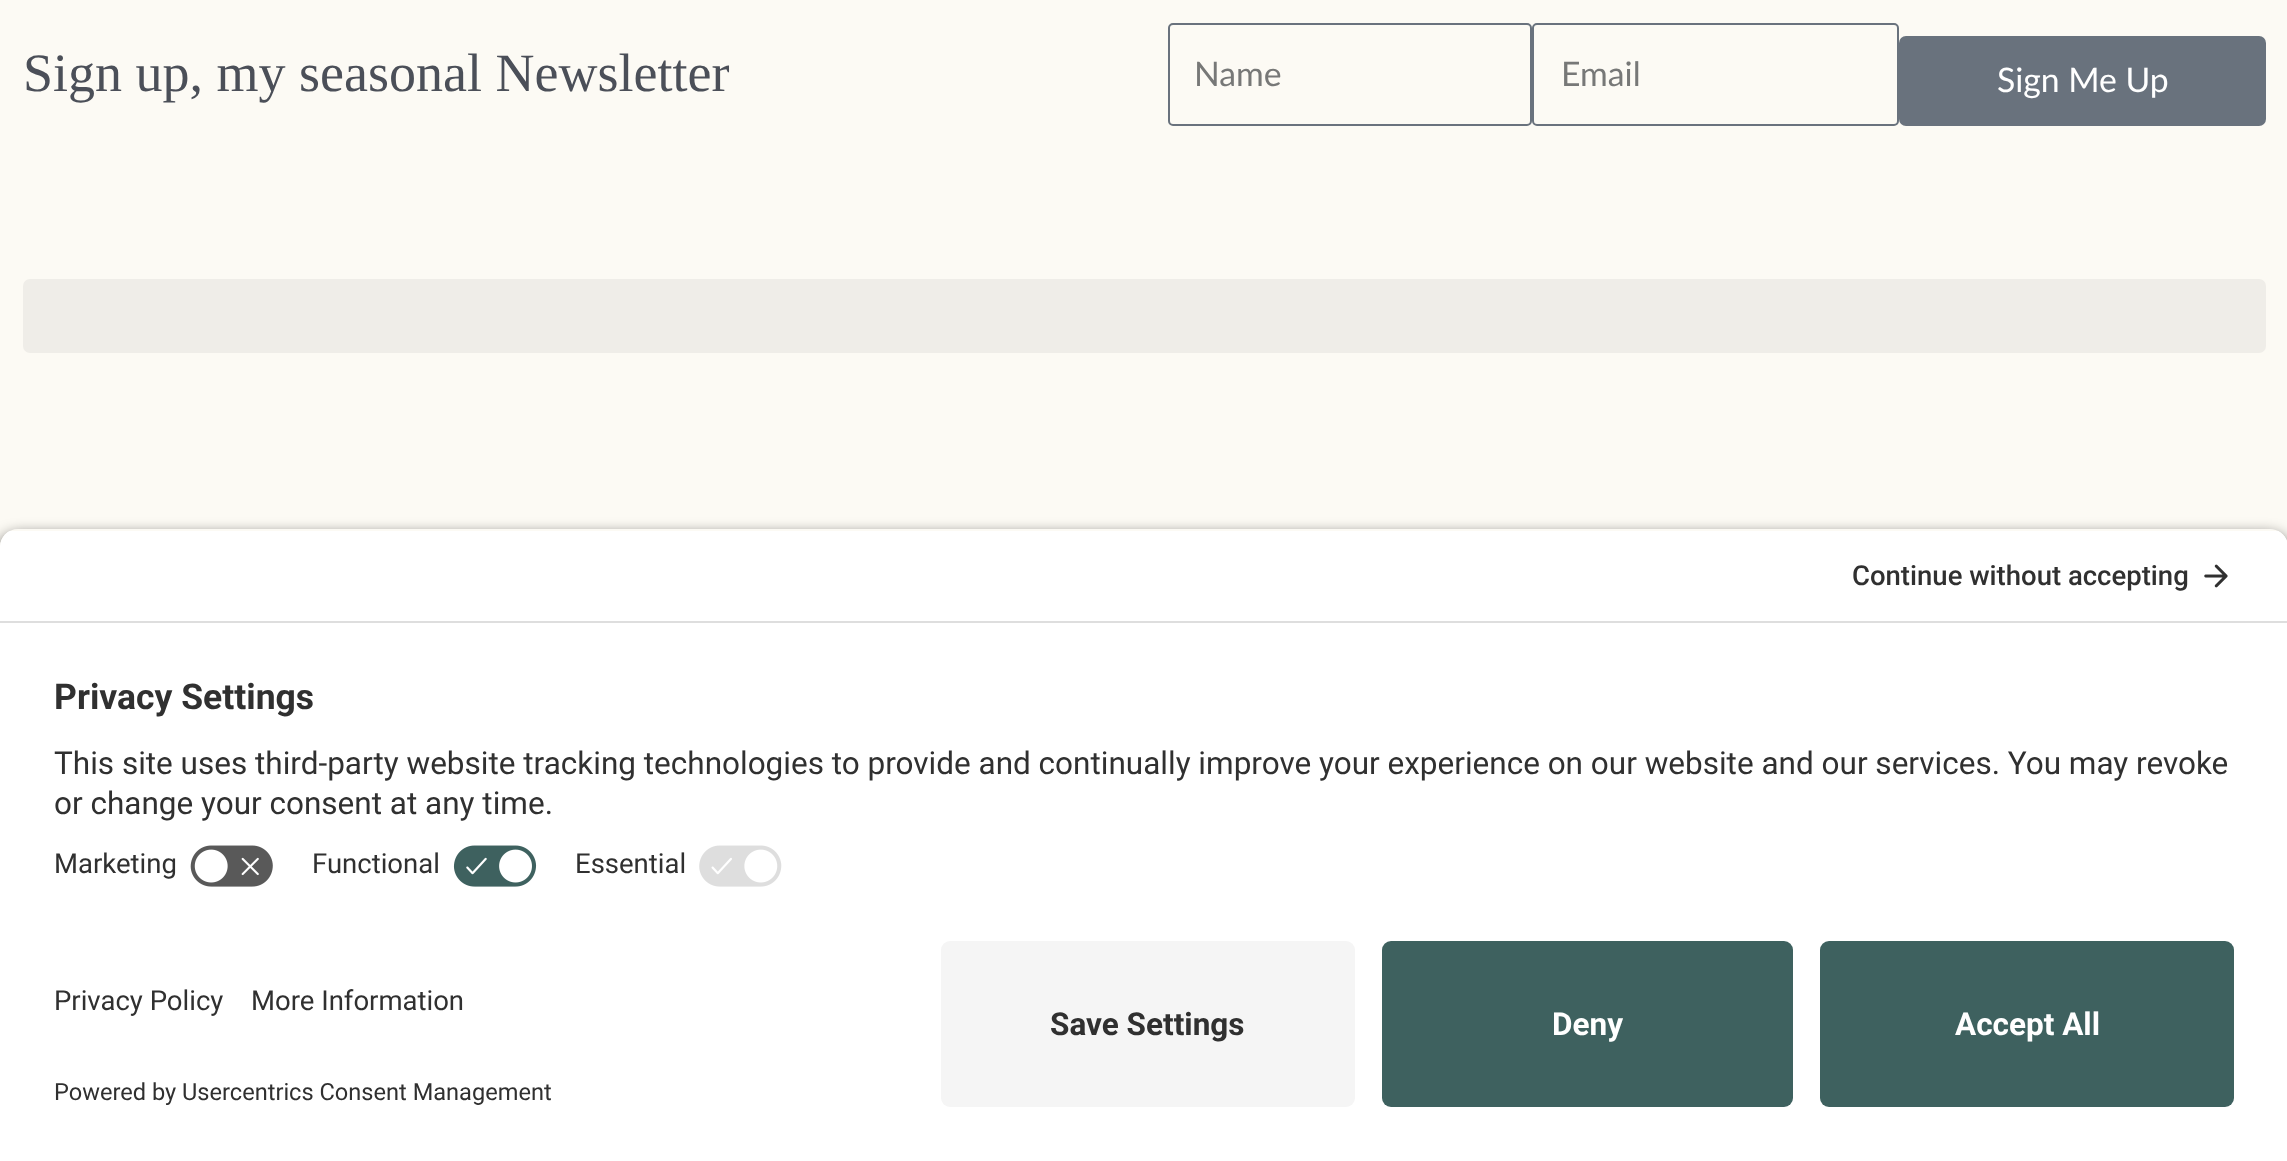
<svg xmlns="http://www.w3.org/2000/svg" width="2287" height="1161" viewBox="0 0 2287 1161">
  <defs>
    <clipPath id="clip1"><path d="M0 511H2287V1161H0ZM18 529H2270C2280 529 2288 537 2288 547V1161H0V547C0 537 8 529 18 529Z" clip-rule="evenodd"/></clipPath>
    <clipPath id="clip2"><path d="M18 529H2270C2280 529 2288 537 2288 547V923H0V547C0 537 8 529 18 529Z"/></clipPath>
  </defs>
  <rect width="100%" height="100%" fill="#fcfaf4"/>
  <rect x="1169" y="24" width="362" height="101" rx="4" fill="none" stroke="#69727d" stroke-width="2"/>
  <rect x="1533" y="24" width="365" height="101" rx="4" fill="none" stroke="#69727d" stroke-width="2"/>
  <rect x="1899" y="36" width="367" height="90" rx="7" fill="#69727d"/>
  <rect x="23" y="279" width="2243" height="74" rx="7" fill="#efede8"/>
  <g clip-path="url(#clip1)">
    <rect y="536" width="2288" height="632" rx="18" fill="#000000cc" filter="blur(8px)"/>
  </g>
  <g clip-path="url(#clip2)">
    <path d="M0 531h2287v90H0z" fill="#fff"/>
  </g>
  <path d="M0 621h2287v2H0z" fill="#dedede"/>
  <image x="2204" y="564" width="24" height="24" href="img/1.png"/>
  <path d="M0 623h2287v538H0z" fill="#fff"/>
  <image x="190" y="845" width="83" height="42" href="img/2.png"/>
  <image x="453" y="845" width="84" height="42" href="img/3.png"/>
  <image x="699" y="845" width="83" height="42" href="img/4.png"/>
  <rect x="941" y="941" width="414" height="166" rx="9" fill="#f5f5f5"/>
  <rect x="1382" y="941" width="411" height="166" rx="9" fill="#3e615f"/>
  <rect x="1820" y="941" width="414" height="166" rx="9" fill="#3e615f"/>
  <text x="23" y="91" font-family="Liberation Serif" font-size="54" fill="#4b4f58">Sign up, my seasonal Newsletter</text>
  <g font-family="Lato" font-size="33.75" fill="#777877">
    <text x="1194" y="86">Name</text>
    <text x="1561" y="86">Email</text>
  </g>
  <text x="1997" y="92" font-family="Lato" font-size="33.75" fill="#fff">Sign Me Up</text>
  <text x="1852" y="585" font-family="Roboto" font-size="27.5" font-weight="500" fill="#303030">Continue without accepting</text>
  <text x="54" y="709" font-family="Roboto" font-size="35.5" font-weight="bold" fill="#303030">Privacy Settings</text>
  <g font-family="Roboto" font-size="31.5" fill="#303030">
    <text x="54" y="774">This site uses third-party website tracking technologies to provide and continually improve your experience on our website and our services. You may revoke</text>
    <text x="54" y="814">or change your consent at any time.</text>
  </g>
  <g font-family="Roboto" font-size="27.5" fill="#303030">
    <text x="54" y="873">Marketing</text>
    <text x="312" y="873">Functional</text>
    <text x="575" y="873">Essential</text>
    <text x="54" y="1010">Privacy Policy</text>
    <text x="251" y="1010">More Information</text>
  </g>
  <text x="54" y="1100" font-family="Roboto" font-size="23.6" fill="#303030">Powered by Usercentrics Consent Management</text>
  <text x="1050" y="1035" font-family="Roboto" font-size="31.5" font-weight="bold" fill="#303030">Save Settings</text>
  <g font-family="Roboto" font-size="31.5" font-weight="bold" fill="#fff">
    <text x="1552" y="1035">Deny</text>
    <text x="1955" y="1035">Accept All</text>
  </g>
</svg>
